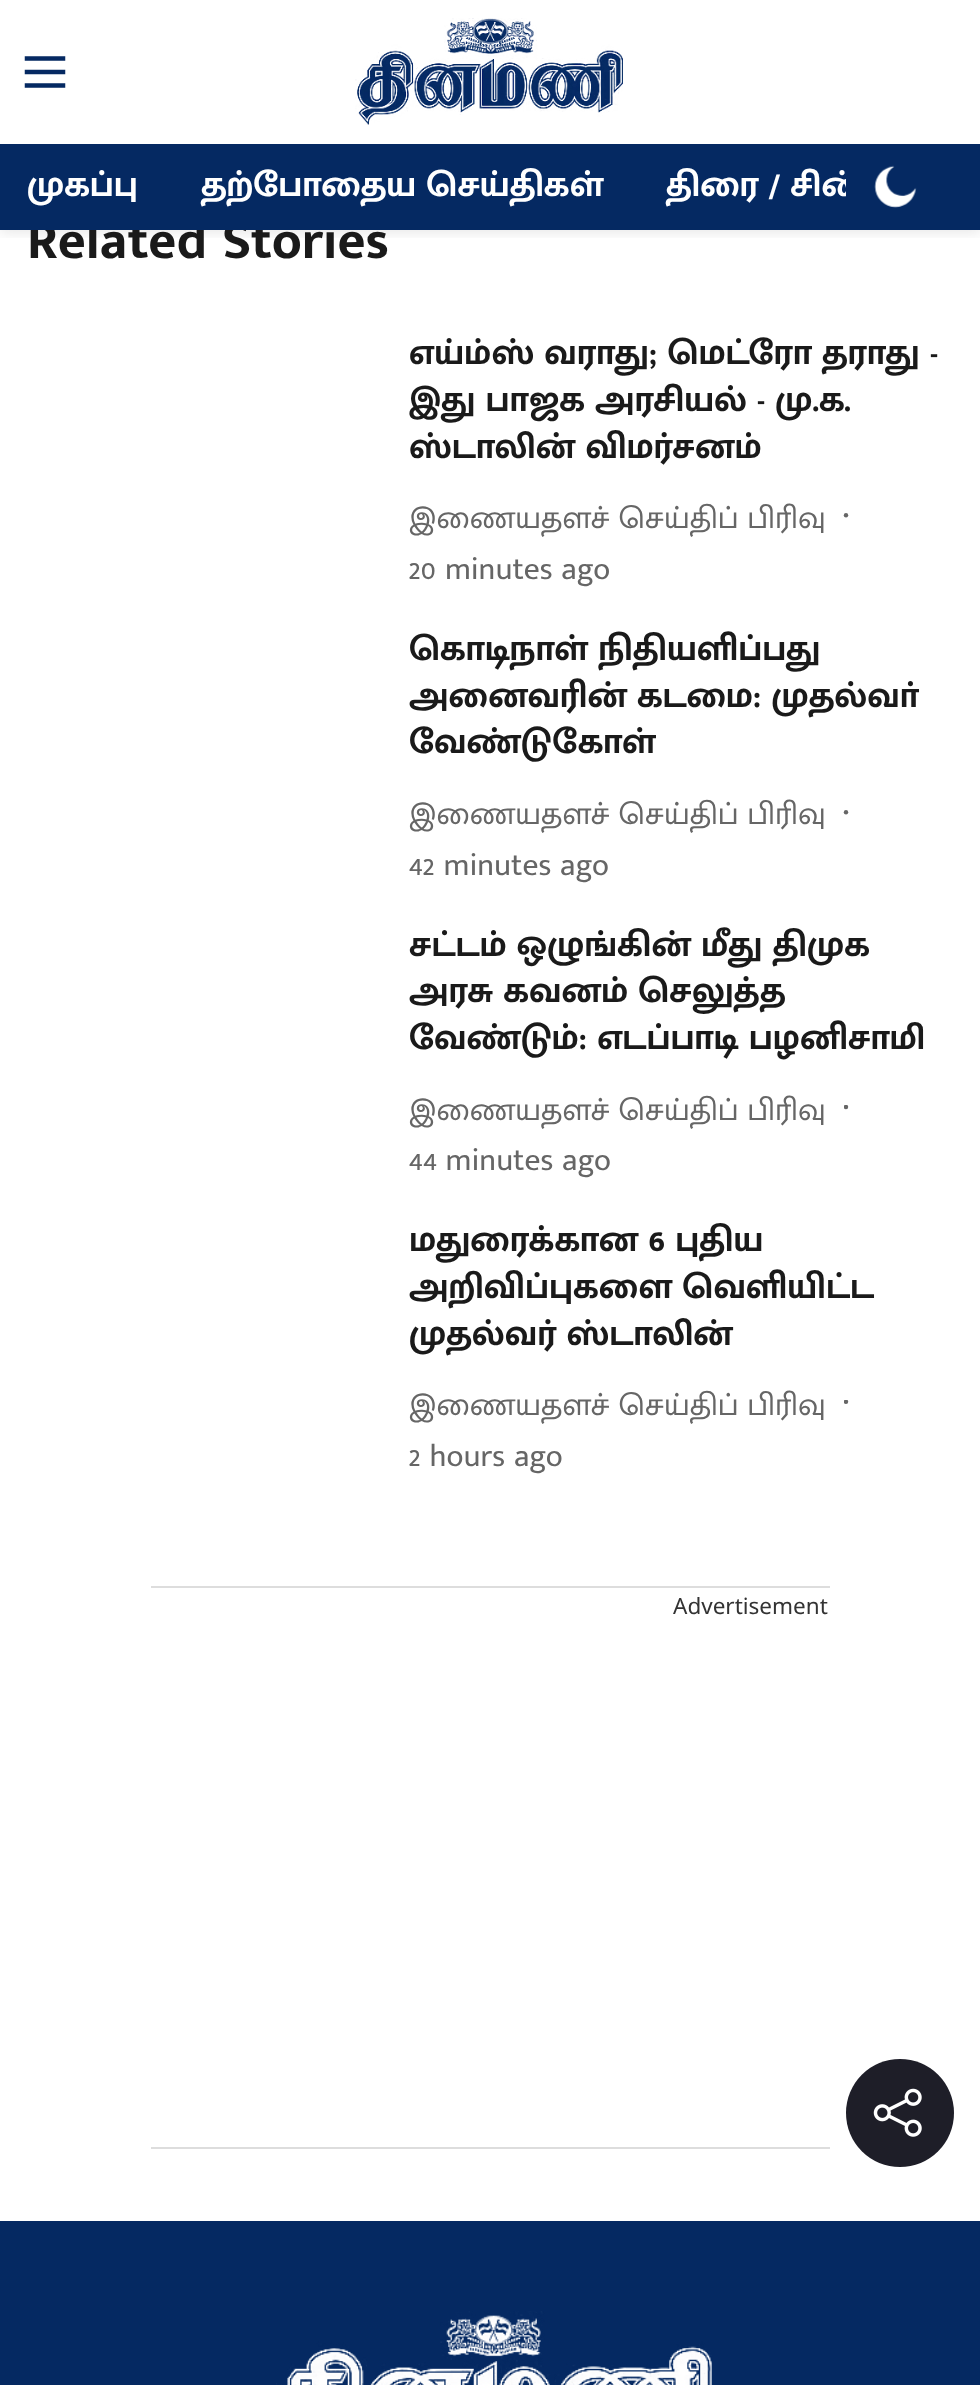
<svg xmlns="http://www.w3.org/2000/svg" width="980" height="2385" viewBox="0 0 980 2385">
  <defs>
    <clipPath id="clip1"><path d="M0 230h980v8H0z"/></clipPath>
    <clipPath id="clip2"><path d="M844 1105h7v7H844z"/></clipPath>
    <clipPath id="clip3"><path d="M844 1400h7v7H844z"/></clipPath>
    <clipPath id="clip4"><path d="M0 144h846v86H0z"/></clipPath>
  </defs>
  <rect width="100%" height="100%" fill="#fff"/>
  <g clip-path="url(#clip1)">
    <path d="M0 2h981v230H0z" fill="#0000001a" filter="blur(7px)"/>
  </g>
  <image x="24" y="56" width="42" height="32" href="img/1.png"/>
  <image x="355" y="18" width="268" height="107" href="img/2.png"/>
  <circle cx="846" cy="515.2" r="2.2" fill="#666"/>
  <circle cx="846" cy="812.2" r="2.2" fill="#666"/>
  <g clip-path="url(#clip2)">
    <circle cx="846" cy="1107" r="2.2" fill="#666"/>
  </g>
  <g clip-path="url(#clip3)">
    <circle cx="846" cy="1401.8" r="2.2" fill="#666"/>
  </g>
  <path d="M151 1586h679v2H151z" fill="#ddd"/>
  <path d="M151 2147h679v2H151z" fill="#ddd"/>
  <circle cx="900" cy="2113" r="54" fill="#1e1e28"/>
  <image x="873" y="2088" width="49" height="49" href="img/4.png"/>
  <path d="M0 2221h980v164H0z" fill="#052962"/>
  <image x="276" y="2311" width="436" height="74" href="img/5.png"/>
  <text x="27" y="258" font-family="Mukta Malar" font-size="54" font-weight="bold" fill="#1a1a1a">Related Stories</text>
  <path d="M0 144h980v86H0z" fill="#052962"/>
  <image x="874" y="165" width="43" height="43" href="img/3.png"/>
  <g clip-path="url(#clip4)">
    <text x="666" y="196" font-family="Mukta Malar" font-size="36" font-weight="bold" fill="#fff">திரை / சின்</text>
  </g>
  <g font-family="Mukta Malar" font-size="36" font-weight="bold" fill="#fff">
    <text x="201" y="196">தற்போதைய செய்திகள்</text>
    <text x="27" y="196">முகப்பு</text>
  </g>
  <g font-family="Mukta Malar" font-size="36" font-weight="bold" fill="#1a1a1a">
    <text x="409" y="364">எய்ம்ஸ் வராது; மெட்ரோ தராது -</text>
    <text x="409" y="411">இது பாஜக அரசியல் - மு.க.</text>
    <text x="409" y="458">ஸ்டாலின் விமர்சனம்</text>
  </g>
  <g font-family="Mukta Malar" font-size="31.5" fill="#666">
    <text x="409" y="528">இணையதளச் செய்திப் பிரிவு</text>
    <text x="409" y="579">20 minutes ago</text>
  </g>
  <g font-family="Mukta Malar" font-size="36" font-weight="bold" fill="#1a1a1a">
    <text x="409" y="660">கொடிநாள் நிதியளிப்பது</text>
    <text x="409" y="707">அனைவரின் கடமை: முதல்வா்</text>
    <text x="409" y="753">வேண்டுகோள்</text>
  </g>
  <g font-family="Mukta Malar" font-size="31.5" fill="#666">
    <text x="409" y="824">இணையதளச் செய்திப் பிரிவு</text>
    <text x="409" y="875">42 minutes ago</text>
  </g>
  <g font-family="Mukta Malar" font-size="36" font-weight="bold" fill="#1a1a1a">
    <text x="409" y="956">சட்டம் ஒழுங்கின் மீது திமுக</text>
    <text x="409" y="1002">அரசு கவனம் செலுத்த</text>
    <text x="409" y="1049">வேண்டும்: எடப்பாடி பழனிசாமி</text>
  </g>
  <g font-family="Mukta Malar" font-size="31.5" fill="#666">
    <text x="409" y="1120">இணையதளச் செய்திப் பிரிவு</text>
    <text x="409" y="1170">44 minutes ago</text>
  </g>
  <g font-family="Mukta Malar" font-size="36" font-weight="bold" fill="#1a1a1a">
    <text x="409" y="1251">மதுரைக்கான 6 புதிய</text>
    <text x="409" y="1298">அறிவிப்புகளை வெளியிட்ட</text>
    <text x="409" y="1345">முதல்வர் ஸ்டாலின்</text>
  </g>
  <g font-family="Mukta Malar" font-size="31.5" fill="#666">
    <text x="409" y="1415">இணையதளச் செய்திப் பிரிவு</text>
    <text x="409" y="1466">2 hours ago</text>
  </g>
  <text x="673" y="1614" font-family="Noto Sans Tamil" font-size="22.5" fill="#333">Advertisement</text>
</svg>
